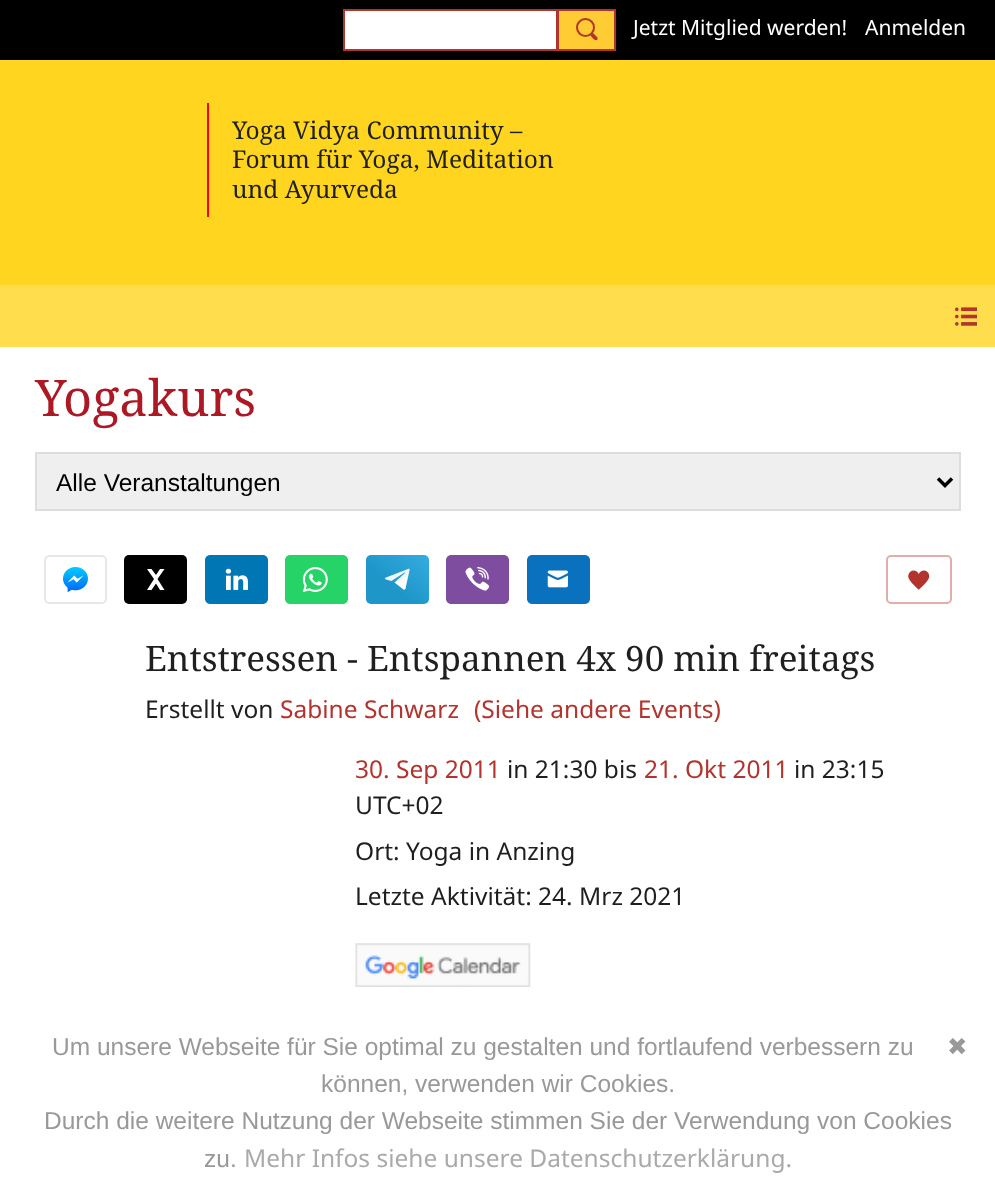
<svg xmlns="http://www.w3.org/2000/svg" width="995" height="1186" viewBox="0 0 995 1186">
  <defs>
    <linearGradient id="g1" gradientUnits="userSpaceOnUse" x1="435" y1="555" x2="402" y2="595"><stop offset="0" stop-color="#37aee2"/><stop offset="1" stop-color="#1e96c8"/></linearGradient>
    <linearGradient id="g2" gradientUnits="userSpaceOnUse" x1="400" y1="578" x2="403" y2="584"><stop offset="0" stop-color="#eff7fc"/><stop offset="1" stop-color="#fff"/></linearGradient>
  </defs>
  <rect width="100%" height="100%" fill="#ffd520"/>
  <path d="M0 0h995v60H0z" fill="#000"/>
  <path d="M344 10h213v40H344z" fill="#fff" stroke="#b3342e" stroke-width="2"/>
  <path d="M558 10h57v40H558z" fill="#fc3" stroke="#b3342e" stroke-width="2"/>
  <circle cx="585.5" cy="27.5" r="8.5" fill="none" stroke="#b3342e" stroke-width="2"/>
  <path d="M593.5 33.5L597.5 37.5C597.5 38 597.5 39 597.5 39.5C595.5 42 592 37.5 591 36C589.5 34.5 592 32 593.5 33.5Z" fill="#b3342e"/>
  <path d="M207 103h2v114H207z" fill="#f00"/>
  <path d="M0 285h995v62H0z" fill="#ffdd4d"/>
  <image x="955" y="307" width="22" height="19" href="img/1.png"/>
  <path d="M0 347h995v839H0z" fill="#fff"/>
  <path d="M36 453h924v57H36z" fill="#efefef" stroke="#ddd" stroke-width="2"/>
  <path d="M938 478.5L945 485.5L952 478.5" fill="none" stroke="#000" stroke-width="3.5"/>
  <image x="44" y="555" width="63" height="49" href="img/2.png"/>
  <rect x="124" y="555" width="63" height="49" rx="5" fill="#000"/>
  <path d="M147 569L154 579L147 590H151.5L156 583.5L160 590H164.5L157.5 579L164.5 569H160L156 575L151.5 569Z" fill="#fff" fill-rule="evenodd"/>
  <image x="205" y="555" width="63" height="49" href="img/3.png"/>
  <image x="285" y="555" width="63" height="49" href="img/4.png"/>
  <rect x="366" y="555" width="63" height="49" rx="5" fill="url(#g1)"/>
  <path d="M394.5 582.5L403.5 589.5C404.5 590 405.5 589.5 405.5 588.5L409.5 570.5C410 569 409 568.5 408 569L386 577.5C384.5 578 384.5 579 386 579.5L391.5 581L404.5 572.5C405 572.5 405.5 572.5 405 573" fill="url(#g2)"/>
  <image x="446" y="555" width="63" height="49" href="img/5.png"/>
  <image x="527" y="555" width="63" height="49" href="img/6.png"/>
  <rect x="887" y="556" width="64" height="47" rx="4" fill="none" stroke="#e1aeab" stroke-width="2"/>
  <image x="908" y="570" width="22" height="20" href="img/7.png"/>
  <image x="355" y="943" width="176" height="44" href="img/8.png"/>
  <g font-family="Noto Sans" font-size="21" fill="#fff">
    <text x="633" y="35">Jetzt Mitglied werden!</text>
    <text x="865" y="35">Anmelden</text>
  </g>
  <g font-family="Noto Serif" font-size="24.5" fill="#1f1f1f">
    <text x="232" y="139">Yoga Vidya Community –</text>
    <text x="232" y="168">Forum für Yoga, Meditation</text>
    <text x="232" y="198">und Ayurveda</text>
  </g>
  <text x="35" y="416" font-family="Noto Serif" font-size="50.5" fill="#ac1924">Yogakurs</text>
  <text x="56" y="491" font-family="Liberation Sans" font-size="24.5" fill="#000">Alle Veranstaltungen</text>
  <text x="145" y="671" font-family="Noto Serif" font-size="35" fill="#1f1f1f">Entstressen - Entspannen 4x 90 min freitags</text>
  <text x="145" y="718" font-family="Noto Sans" font-size="24.5" fill="#1f1f1f">Erstellt von</text>
  <g font-family="Noto Sans" font-size="24.5" fill="#b3342e">
    <text x="280" y="718">Sabine Schwarz</text>
    <text x="474" y="718">(Siehe andere Events)</text>
    <text x="355" y="778">30. Sep 2011</text>
  </g>
  <text x="507" y="778" font-family="Noto Sans" font-size="24.5" fill="#1f1f1f">in 21:30 bis</text>
  <text x="644" y="778" font-family="Noto Sans" font-size="24.5" fill="#b3342e">21. Okt 2011</text>
  <g font-family="Noto Sans" font-size="24.5" fill="#1f1f1f">
    <text x="794" y="778">in 23:15</text>
    <text x="355" y="814">UTC+02</text>
    <text x="355" y="860">Ort: Yoga in Anzing</text>
    <text x="355" y="905">Letzte Aktivität: 24. Mrz 2021</text>
  </g>
  <text x="52" y="1055" font-family="Liberation Sans" font-size="24.5" fill="#999">Um unsere Webseite für Sie optimal zu gestalten und fortlaufend verbessern zu</text>
  <text x="947" y="1055" font-family="DejaVu Sans" font-size="24.5" fill="#999">✖</text>
  <g font-family="Liberation Sans" font-size="24.5" fill="#999">
    <text x="321" y="1092">können, verwenden wir Cookies.</text>
    <text x="44" y="1129">Durch die weitere Nutzung der Webseite stimmen Sie der Verwendung von Cookies</text>
    <text x="204" y="1167">zu.</text>
  </g>
  <text x="244" y="1167" font-family="Noto Sans" font-size="24.5" fill="#aaa">Mehr Infos siehe unsere Datenschutzerklärung.</text>
</svg>
